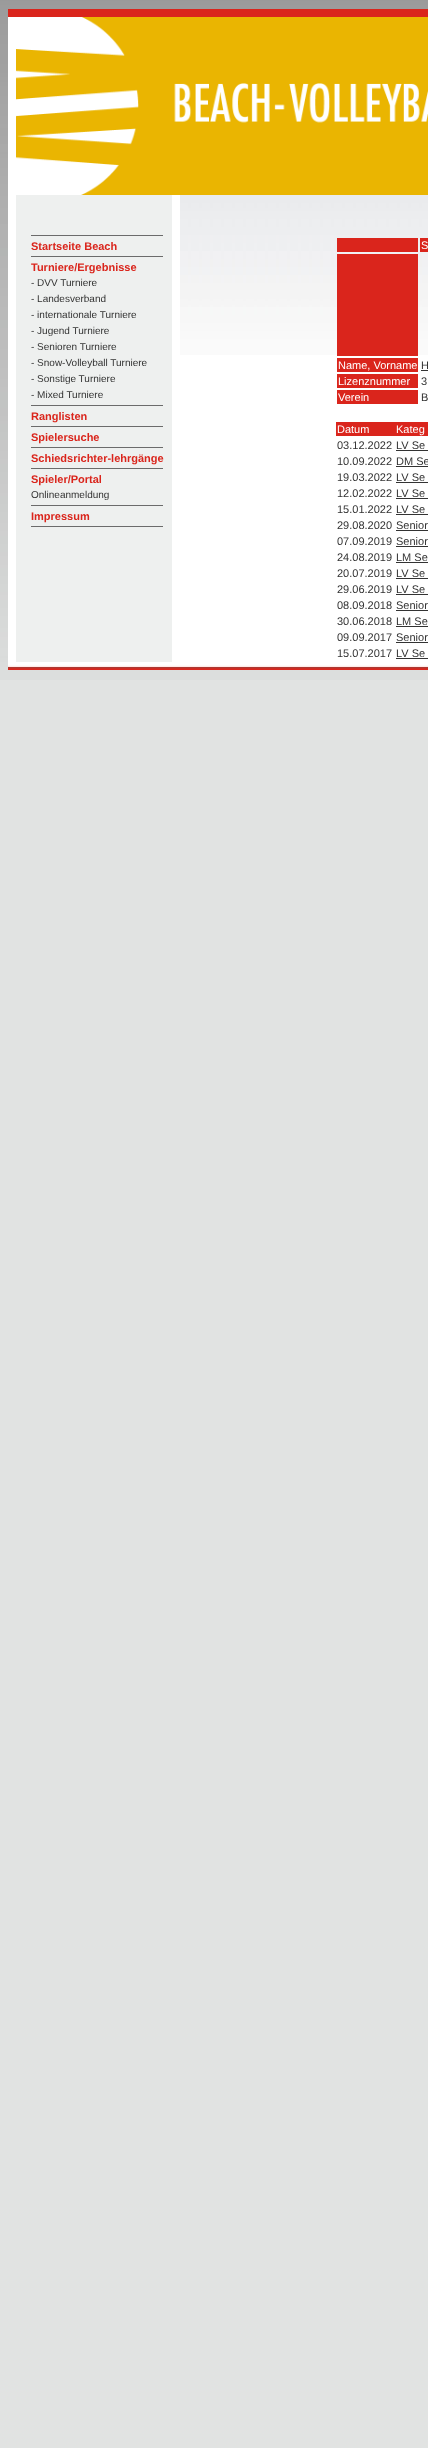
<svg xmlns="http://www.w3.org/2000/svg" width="428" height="2448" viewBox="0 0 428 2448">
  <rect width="100%" height="100%" fill="#e1e3e2"/>
  <image x="0" y="0" width="428" height="680" href="img/1.png"/>
  <path d="M8 9h420v8H8z" fill="#da251c"/>
  <path d="M8 17h8v645H8z" fill="#fff"/>
  <image x="16" y="17" width="412" height="178" href="img/2.png"/>
  <image x="16" y="195" width="164" height="467" href="img/3.png"/>
  <path d="M31 235h132v1H31z" fill="#6b6b6b"/>
  <path d="M31 256h132v1H31z" fill="#6b6b6b"/>
  <path d="M31 405h132v1H31z" fill="#6b6b6b"/>
  <path d="M31 426h132v1H31z" fill="#6b6b6b"/>
  <path d="M31 447h132v1H31z" fill="#6b6b6b"/>
  <path d="M31 468h132v1H31z" fill="#6b6b6b"/>
  <path d="M31 505h132v1H31z" fill="#6b6b6b"/>
  <path d="M31 526h132v1H31z" fill="#6b6b6b"/>
  <path d="M180 355h248v307H180z" fill="#fff"/>
  <image x="180" y="195" width="248" height="160" href="img/4.png"/>
  <path d="M337 238h81v14H337z" fill="#da251c"/>
  <path d="M420 238h8v14H420z" fill="#da251c"/>
  <path d="M337 254h81v102H337z" fill="#da251c"/>
  <path d="M337 358h81v14H337z" fill="#da251c"/>
  <path d="M421 370h7v1H421z" fill="#333"/>
  <path d="M337 374h81v14H337z" fill="#da251c"/>
  <path d="M337 390h81v14H337z" fill="#da251c"/>
  <path d="M336 422h92v14H336z" fill="#da251c"/>
  <path d="M396 450h32v1H396z" fill="#333"/>
  <path d="M396 466h32v1H396z" fill="#333"/>
  <path d="M396 482h32v1H396z" fill="#333"/>
  <path d="M396 498h32v1H396z" fill="#333"/>
  <path d="M396 514h32v1H396z" fill="#333"/>
  <path d="M396 530h32v1H396z" fill="#333"/>
  <path d="M396 546h32v1H396z" fill="#333"/>
  <path d="M396 562h32v1H396z" fill="#333"/>
  <path d="M396 578h32v1H396z" fill="#333"/>
  <path d="M396 594h32v1H396z" fill="#333"/>
  <path d="M396 610h32v1H396z" fill="#333"/>
  <path d="M396 626h32v1H396z" fill="#333"/>
  <path d="M396 642h32v1H396z" fill="#333"/>
  <path d="M396 658h32v1H396z" fill="#333"/>
  <image x="8" y="662" width="420" height="8" href="img/5.png"/>
  <g font-family="Liberation Sans" font-size="11" font-weight="bold" fill="#da251c">
    <text x="31" y="250">Startseite Beach</text>
    <text x="31" y="271">Turniere/Ergebnisse</text>
  </g>
  <g font-family="Liberation Sans" font-size="10" fill="#333">
    <text x="31" y="286">- DVV Turniere</text>
    <text x="31" y="302">- Landesverband</text>
    <text x="31" y="318">- internationale Turniere</text>
    <text x="31" y="334">- Jugend Turniere</text>
    <text x="31" y="350">- Senioren Turniere</text>
    <text x="31" y="366">- Snow-Volleyball Turniere</text>
    <text x="31" y="382">- Sonstige Turniere</text>
    <text x="31" y="398">- Mixed Turniere</text>
  </g>
  <g font-family="Liberation Sans" font-size="11" font-weight="bold" fill="#da251c">
    <text x="31" y="420">Ranglisten</text>
    <text x="31" y="441">Spielersuche</text>
    <text x="31" y="462">Schiedsrichter-lehrgänge</text>
    <text x="31" y="483">Spieler/Portal</text>
  </g>
  <text x="31" y="498" font-family="Liberation Sans" font-size="10" fill="#333">Onlineanmeldung</text>
  <text x="31" y="520" font-family="Liberation Sans" font-size="11" font-weight="bold" fill="#da251c">Impressum</text>
  <g font-family="Liberation Sans" font-size="11" fill="#fff">
    <text x="421" y="249">S</text>
    <text x="338" y="369">Name, Vorname</text>
  </g>
  <text x="421" y="369" font-family="Liberation Sans" font-size="11" fill="#333">H</text>
  <text x="338" y="385" font-family="Liberation Sans" font-size="11" fill="#fff">Lizenznummer</text>
  <text x="421" y="385" font-family="Liberation Sans" font-size="11" fill="#333">3</text>
  <text x="338" y="401" font-family="Liberation Sans" font-size="11" fill="#fff">Verein</text>
  <text x="421" y="401" font-family="Liberation Sans" font-size="11" fill="#333">B</text>
  <g font-family="Liberation Sans" font-size="11" fill="#fff">
    <text x="337" y="433">Datum</text>
    <text x="396" y="433">Kateg</text>
  </g>
  <g font-family="Liberation Sans" font-size="11" fill="#333">
    <text x="337" y="449">03.12.2022</text>
    <text x="396" y="449">LV Se</text>
    <text x="337" y="465">10.09.2022</text>
    <text x="396" y="465">DM Se</text>
    <text x="337" y="481">19.03.2022</text>
    <text x="396" y="481">LV Se</text>
    <text x="337" y="497">12.02.2022</text>
    <text x="396" y="497">LV Se</text>
    <text x="337" y="513">15.01.2022</text>
    <text x="396" y="513">LV Se</text>
    <text x="337" y="529">29.08.2020</text>
    <text x="396" y="529">Senior</text>
    <text x="337" y="545">07.09.2019</text>
    <text x="396" y="545">Senior</text>
    <text x="337" y="561">24.08.2019</text>
    <text x="396" y="561">LM Se</text>
    <text x="337" y="577">20.07.2019</text>
    <text x="396" y="577">LV Se</text>
    <text x="337" y="593">29.06.2019</text>
    <text x="396" y="593">LV Se</text>
    <text x="337" y="609">08.09.2018</text>
    <text x="396" y="609">Senior</text>
    <text x="337" y="625">30.06.2018</text>
    <text x="396" y="625">LM Se</text>
    <text x="337" y="641">09.09.2017</text>
    <text x="396" y="641">Senior</text>
    <text x="337" y="657">15.07.2017</text>
    <text x="396" y="657">LV Se</text>
  </g>
</svg>
